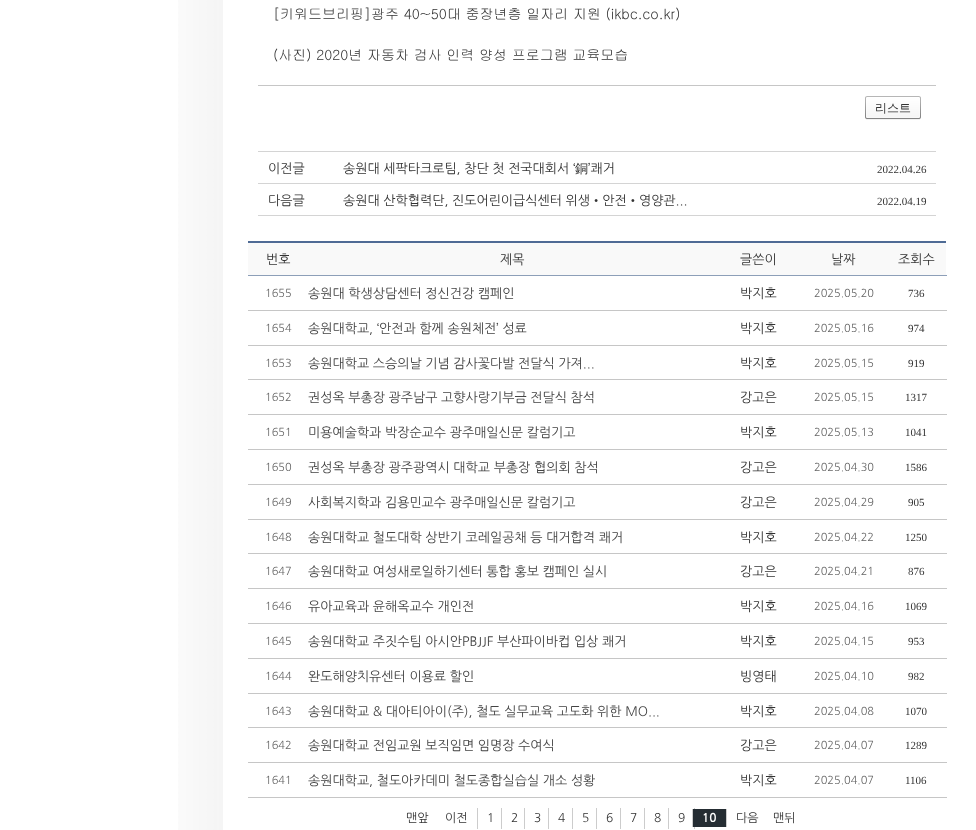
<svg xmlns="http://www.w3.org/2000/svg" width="976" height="830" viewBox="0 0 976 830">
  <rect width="100%" height="100%" fill="#fff"/>
  <image x="178" y="0" width="45" height="830" href="img/1.png"/>
  <path d="M258 85h678v1H258z" fill="#c6c6c6"/>
  <image x="865" y="96" width="52" height="24" href="img/2.png"/>
  <image x="917" y="96" width="4" height="24" href="img/3.png"/>
  <path d="M258 151h678v1H258z" fill="#d4d4d4"/>
  <path d="M258 183h678v1H258z" fill="#d4d4d4"/>
  <path d="M258 215h678v1H258z" fill="#d4d4d4"/>
  <path d="M248 797h699v1H248z" fill="#c6c6c6"/>
  <path d="M248 241h698v2H248z" fill="#4f6b95"/>
  <path d="M248 243h698v32H248z" fill="#f9f9f9"/>
  <path d="M248 275h699v1H248z" fill="#8d9fb8"/>
  <path d="M248 310h699v1H248z" fill="#c6c6c6"/>
  <path d="M248 345h699v1H248z" fill="#c6c6c6"/>
  <path d="M248 379h699v1H248z" fill="#c6c6c6"/>
  <path d="M248 414h699v1H248z" fill="#c6c6c6"/>
  <path d="M248 449h699v1H248z" fill="#c6c6c6"/>
  <path d="M248 484h699v1H248z" fill="#c6c6c6"/>
  <path d="M248 519h699v1H248z" fill="#c6c6c6"/>
  <path d="M248 553h699v1H248z" fill="#c6c6c6"/>
  <path d="M248 588h699v1H248z" fill="#c6c6c6"/>
  <path d="M248 623h699v1H248z" fill="#c6c6c6"/>
  <path d="M248 658h699v1H248z" fill="#c6c6c6"/>
  <path d="M248 693h699v1H248z" fill="#c6c6c6"/>
  <path d="M248 727h699v1H248z" fill="#c6c6c6"/>
  <path d="M248 762h699v1H248z" fill="#c6c6c6"/>
  <path d="M477 808h1v21H477z" fill="#ccc"/>
  <path d="M501 808h1v21H501z" fill="#ccc"/>
  <path d="M524 808h1v21H524z" fill="#ccc"/>
  <path d="M548 808h1v21H548z" fill="#ccc"/>
  <path d="M572 808h1v21H572z" fill="#ccc"/>
  <path d="M596 808h1v21H596z" fill="#ccc"/>
  <path d="M620 808h1v21H620z" fill="#ccc"/>
  <path d="M644 808h1v21H644z" fill="#ccc"/>
  <path d="M694 808h1v21H694z" fill="#ccc"/>
  <path d="M668 808h1v21H668z" fill="#ccc"/>
  <path d="M693 809h33v18H693z" fill="#252d33"/>
  <path d="M726 809h1v18H726z" fill="#ccc"/>
  <path d="M692 809h1v18H692z" fill="#ccc"/>
  <g font-family="Gulim" font-size="14" fill="#333">
    <text x="273" y="19">[키워드브리핑]광주 40~50대 중장년층 일자리 지원 (ikbc.co.kr)</text>
    <text x="273" y="60">(사진) 2020년 자동차 검사 인력 양성 프로그램 교육모습</text>
  </g>
  <text x="875" y="112" font-family="WenQuanYi Zen Hei" font-size="12" font-weight="500" fill="#333">리스트</text>
  <g font-family="NanumGothic" font-size="13" fill="#333">
    <text x="268" y="173">이전글</text>
    <text x="343" y="173">송원대 세팍타크로팀, 창단 첫 전국대회서 ‘</text>
  </g>
  <text x="575" y="173" font-family="WenQuanYi Zen Hei" font-size="13" font-weight="500" fill="#333">銅</text>
  <text x="588" y="173" font-family="NanumGothic" font-size="13" fill="#333">’쾌거</text>
  <text x="877" y="173" font-family="Liberation Serif" font-size="11" fill="#333">2022.04.26</text>
  <g font-family="NanumGothic" font-size="13" fill="#333">
    <text x="268" y="205">다음글</text>
    <text x="343" y="205">송원대 산학협력단, 진도어린이급식센터 위생•안전•영양관...</text>
  </g>
  <text x="877" y="205" font-family="Liberation Serif" font-size="11" fill="#333">2022.04.19</text>
  <g font-family="NanumGothic" font-size="13" fill="#333">
    <text x="266" y="264">번호</text>
    <text x="500" y="264">제목</text>
    <text x="740" y="264">글쓴이</text>
    <text x="831" y="264">날짜</text>
    <text x="898" y="264">조회수</text>
  </g>
  <text x="265" y="297" font-family="NanumGothic" font-size="11" fill="#666">1655</text>
  <text x="308" y="298" font-family="NanumGothic" font-size="13" fill="#444">송원대 학생상담센터 정신건강 캠페인</text>
  <text x="740" y="298" font-family="NanumGothic" font-size="13" fill="#333">박지호</text>
  <text x="814" y="297" font-family="NanumGothic" font-size="11" fill="#666">2025.05.20</text>
  <text x="908" y="297" font-family="Liberation Serif" font-size="11" fill="#333">736</text>
  <text x="265" y="332" font-family="NanumGothic" font-size="11" fill="#666">1654</text>
  <text x="308" y="333" font-family="NanumGothic" font-size="13" fill="#444">송원대학교, ‘안전과 함께 송원체전’ 성료</text>
  <text x="740" y="333" font-family="NanumGothic" font-size="13" fill="#333">박지호</text>
  <text x="814" y="332" font-family="NanumGothic" font-size="11" fill="#666">2025.05.16</text>
  <text x="908" y="332" font-family="Liberation Serif" font-size="11" fill="#333">974</text>
  <text x="265" y="367" font-family="NanumGothic" font-size="11" fill="#666">1653</text>
  <text x="308" y="368" font-family="NanumGothic" font-size="13" fill="#444">송원대학교 스승의날 기념 감사꽃다발 전달식 가져...</text>
  <text x="740" y="368" font-family="NanumGothic" font-size="13" fill="#333">박지호</text>
  <text x="814" y="367" font-family="NanumGothic" font-size="11" fill="#666">2025.05.15</text>
  <text x="908" y="367" font-family="Liberation Serif" font-size="11" fill="#333">919</text>
  <text x="265" y="401" font-family="NanumGothic" font-size="11" fill="#666">1652</text>
  <text x="308" y="402" font-family="NanumGothic" font-size="13" fill="#444">권성옥 부총장 광주남구 고향사랑기부금 전달식 참석</text>
  <text x="740" y="402" font-family="NanumGothic" font-size="13" fill="#333">강고은</text>
  <text x="814" y="401" font-family="NanumGothic" font-size="11" fill="#666">2025.05.15</text>
  <text x="905" y="401" font-family="Liberation Serif" font-size="11" fill="#333">1317</text>
  <text x="265" y="436" font-family="NanumGothic" font-size="11" fill="#666">1651</text>
  <text x="308" y="437" font-family="NanumGothic" font-size="13" fill="#444">미용예술학과 박장순교수 광주매일신문 칼럼기고</text>
  <text x="740" y="437" font-family="NanumGothic" font-size="13" fill="#333">박지호</text>
  <text x="814" y="436" font-family="NanumGothic" font-size="11" fill="#666">2025.05.13</text>
  <text x="905" y="436" font-family="Liberation Serif" font-size="11" fill="#333">1041</text>
  <text x="265" y="471" font-family="NanumGothic" font-size="11" fill="#666">1650</text>
  <text x="308" y="472" font-family="NanumGothic" font-size="13" fill="#444">권성옥 부총장 광주광역시 대학교 부총장 협의회 참석</text>
  <text x="740" y="472" font-family="NanumGothic" font-size="13" fill="#333">강고은</text>
  <text x="814" y="471" font-family="NanumGothic" font-size="11" fill="#666">2025.04.30</text>
  <text x="905" y="471" font-family="Liberation Serif" font-size="11" fill="#333">1586</text>
  <text x="265" y="506" font-family="NanumGothic" font-size="11" fill="#666">1649</text>
  <text x="308" y="507" font-family="NanumGothic" font-size="13" fill="#444">사회복지학과 김용민교수 광주매일신문 칼럼기고</text>
  <text x="740" y="507" font-family="NanumGothic" font-size="13" fill="#333">강고은</text>
  <text x="814" y="506" font-family="NanumGothic" font-size="11" fill="#666">2025.04.29</text>
  <text x="908" y="506" font-family="Liberation Serif" font-size="11" fill="#333">905</text>
  <text x="265" y="541" font-family="NanumGothic" font-size="11" fill="#666">1648</text>
  <text x="308" y="542" font-family="NanumGothic" font-size="13" fill="#444">송원대학교 철도대학 상반기 코레일공채 등 대거합격 쾌거</text>
  <text x="740" y="542" font-family="NanumGothic" font-size="13" fill="#333">박지호</text>
  <text x="814" y="541" font-family="NanumGothic" font-size="11" fill="#666">2025.04.22</text>
  <text x="905" y="541" font-family="Liberation Serif" font-size="11" fill="#333">1250</text>
  <text x="265" y="575" font-family="NanumGothic" font-size="11" fill="#666">1647</text>
  <text x="308" y="576" font-family="NanumGothic" font-size="13" fill="#444">송원대학교 여성새로일하기센터 통합 홍보 캠페인 실시</text>
  <text x="740" y="576" font-family="NanumGothic" font-size="13" fill="#333">강고은</text>
  <text x="814" y="575" font-family="NanumGothic" font-size="11" fill="#666">2025.04.21</text>
  <text x="908" y="575" font-family="Liberation Serif" font-size="11" fill="#333">876</text>
  <text x="265" y="610" font-family="NanumGothic" font-size="11" fill="#666">1646</text>
  <text x="308" y="611" font-family="NanumGothic" font-size="13" fill="#444">유아교육과 윤해옥교수 개인전</text>
  <text x="740" y="611" font-family="NanumGothic" font-size="13" fill="#333">박지호</text>
  <text x="814" y="610" font-family="NanumGothic" font-size="11" fill="#666">2025.04.16</text>
  <text x="905" y="610" font-family="Liberation Serif" font-size="11" fill="#333">1069</text>
  <text x="265" y="645" font-family="NanumGothic" font-size="11" fill="#666">1645</text>
  <text x="308" y="646" font-family="NanumGothic" font-size="13" fill="#444">송원대학교 주짓수팀 아시안PBJJF 부산파이바컵 입상 쾌거</text>
  <text x="740" y="646" font-family="NanumGothic" font-size="13" fill="#333">박지호</text>
  <text x="814" y="645" font-family="NanumGothic" font-size="11" fill="#666">2025.04.15</text>
  <text x="908" y="645" font-family="Liberation Serif" font-size="11" fill="#333">953</text>
  <text x="265" y="680" font-family="NanumGothic" font-size="11" fill="#666">1644</text>
  <text x="308" y="681" font-family="NanumGothic" font-size="13" fill="#444">완도해양치유센터 이용료 할인</text>
  <text x="740" y="681" font-family="NanumGothic" font-size="13" fill="#333">빙영태</text>
  <text x="814" y="680" font-family="NanumGothic" font-size="11" fill="#666">2025.04.10</text>
  <text x="908" y="680" font-family="Liberation Serif" font-size="11" fill="#333">982</text>
  <text x="265" y="715" font-family="NanumGothic" font-size="11" fill="#666">1643</text>
  <text x="308" y="716" font-family="NanumGothic" font-size="13" fill="#444">송원대학교 &amp; 대아티아이(주), 철도 실무교육 고도화 위한 MO...</text>
  <text x="740" y="716" font-family="NanumGothic" font-size="13" fill="#333">박지호</text>
  <text x="814" y="715" font-family="NanumGothic" font-size="11" fill="#666">2025.04.08</text>
  <text x="905" y="715" font-family="Liberation Serif" font-size="11" fill="#333">1070</text>
  <text x="265" y="749" font-family="NanumGothic" font-size="11" fill="#666">1642</text>
  <text x="308" y="750" font-family="NanumGothic" font-size="13" fill="#444">송원대학교 전임교원 보직임면 임명장 수여식</text>
  <text x="740" y="750" font-family="NanumGothic" font-size="13" fill="#333">강고은</text>
  <text x="814" y="749" font-family="NanumGothic" font-size="11" fill="#666">2025.04.07</text>
  <text x="905" y="749" font-family="Liberation Serif" font-size="11" fill="#333">1289</text>
  <text x="265" y="784" font-family="NanumGothic" font-size="11" fill="#666">1641</text>
  <text x="308" y="785" font-family="NanumGothic" font-size="13" fill="#444">송원대학교, 철도아카데미 철도종합실습실 개소 성황</text>
  <text x="740" y="785" font-family="NanumGothic" font-size="13" fill="#333">박지호</text>
  <text x="814" y="784" font-family="NanumGothic" font-size="11" fill="#666">2025.04.07</text>
  <text x="905" y="784" font-family="Liberation Serif" font-size="11" fill="#333">1106</text>
  <g font-family="NanumGothic" font-size="12" fill="#333">
    <text x="406" y="822">맨앞</text>
    <text x="445" y="822">이전</text>
    <text x="487" y="822">1</text>
    <text x="511" y="822">2</text>
    <text x="534" y="822">3</text>
    <text x="558" y="822">4</text>
    <text x="582" y="822">5</text>
    <text x="606" y="822">6</text>
    <text x="630" y="822">7</text>
    <text x="654" y="822">8</text>
    <text x="678" y="822">9</text>
  </g>
  <text x="702" y="822" font-family="NanumGothic" font-size="12" font-weight="bold" fill="#fff">10</text>
  <g font-family="NanumGothic" font-size="12" fill="#333">
    <text x="736" y="822">다음</text>
    <text x="773" y="822">맨뒤</text>
  </g>
</svg>
